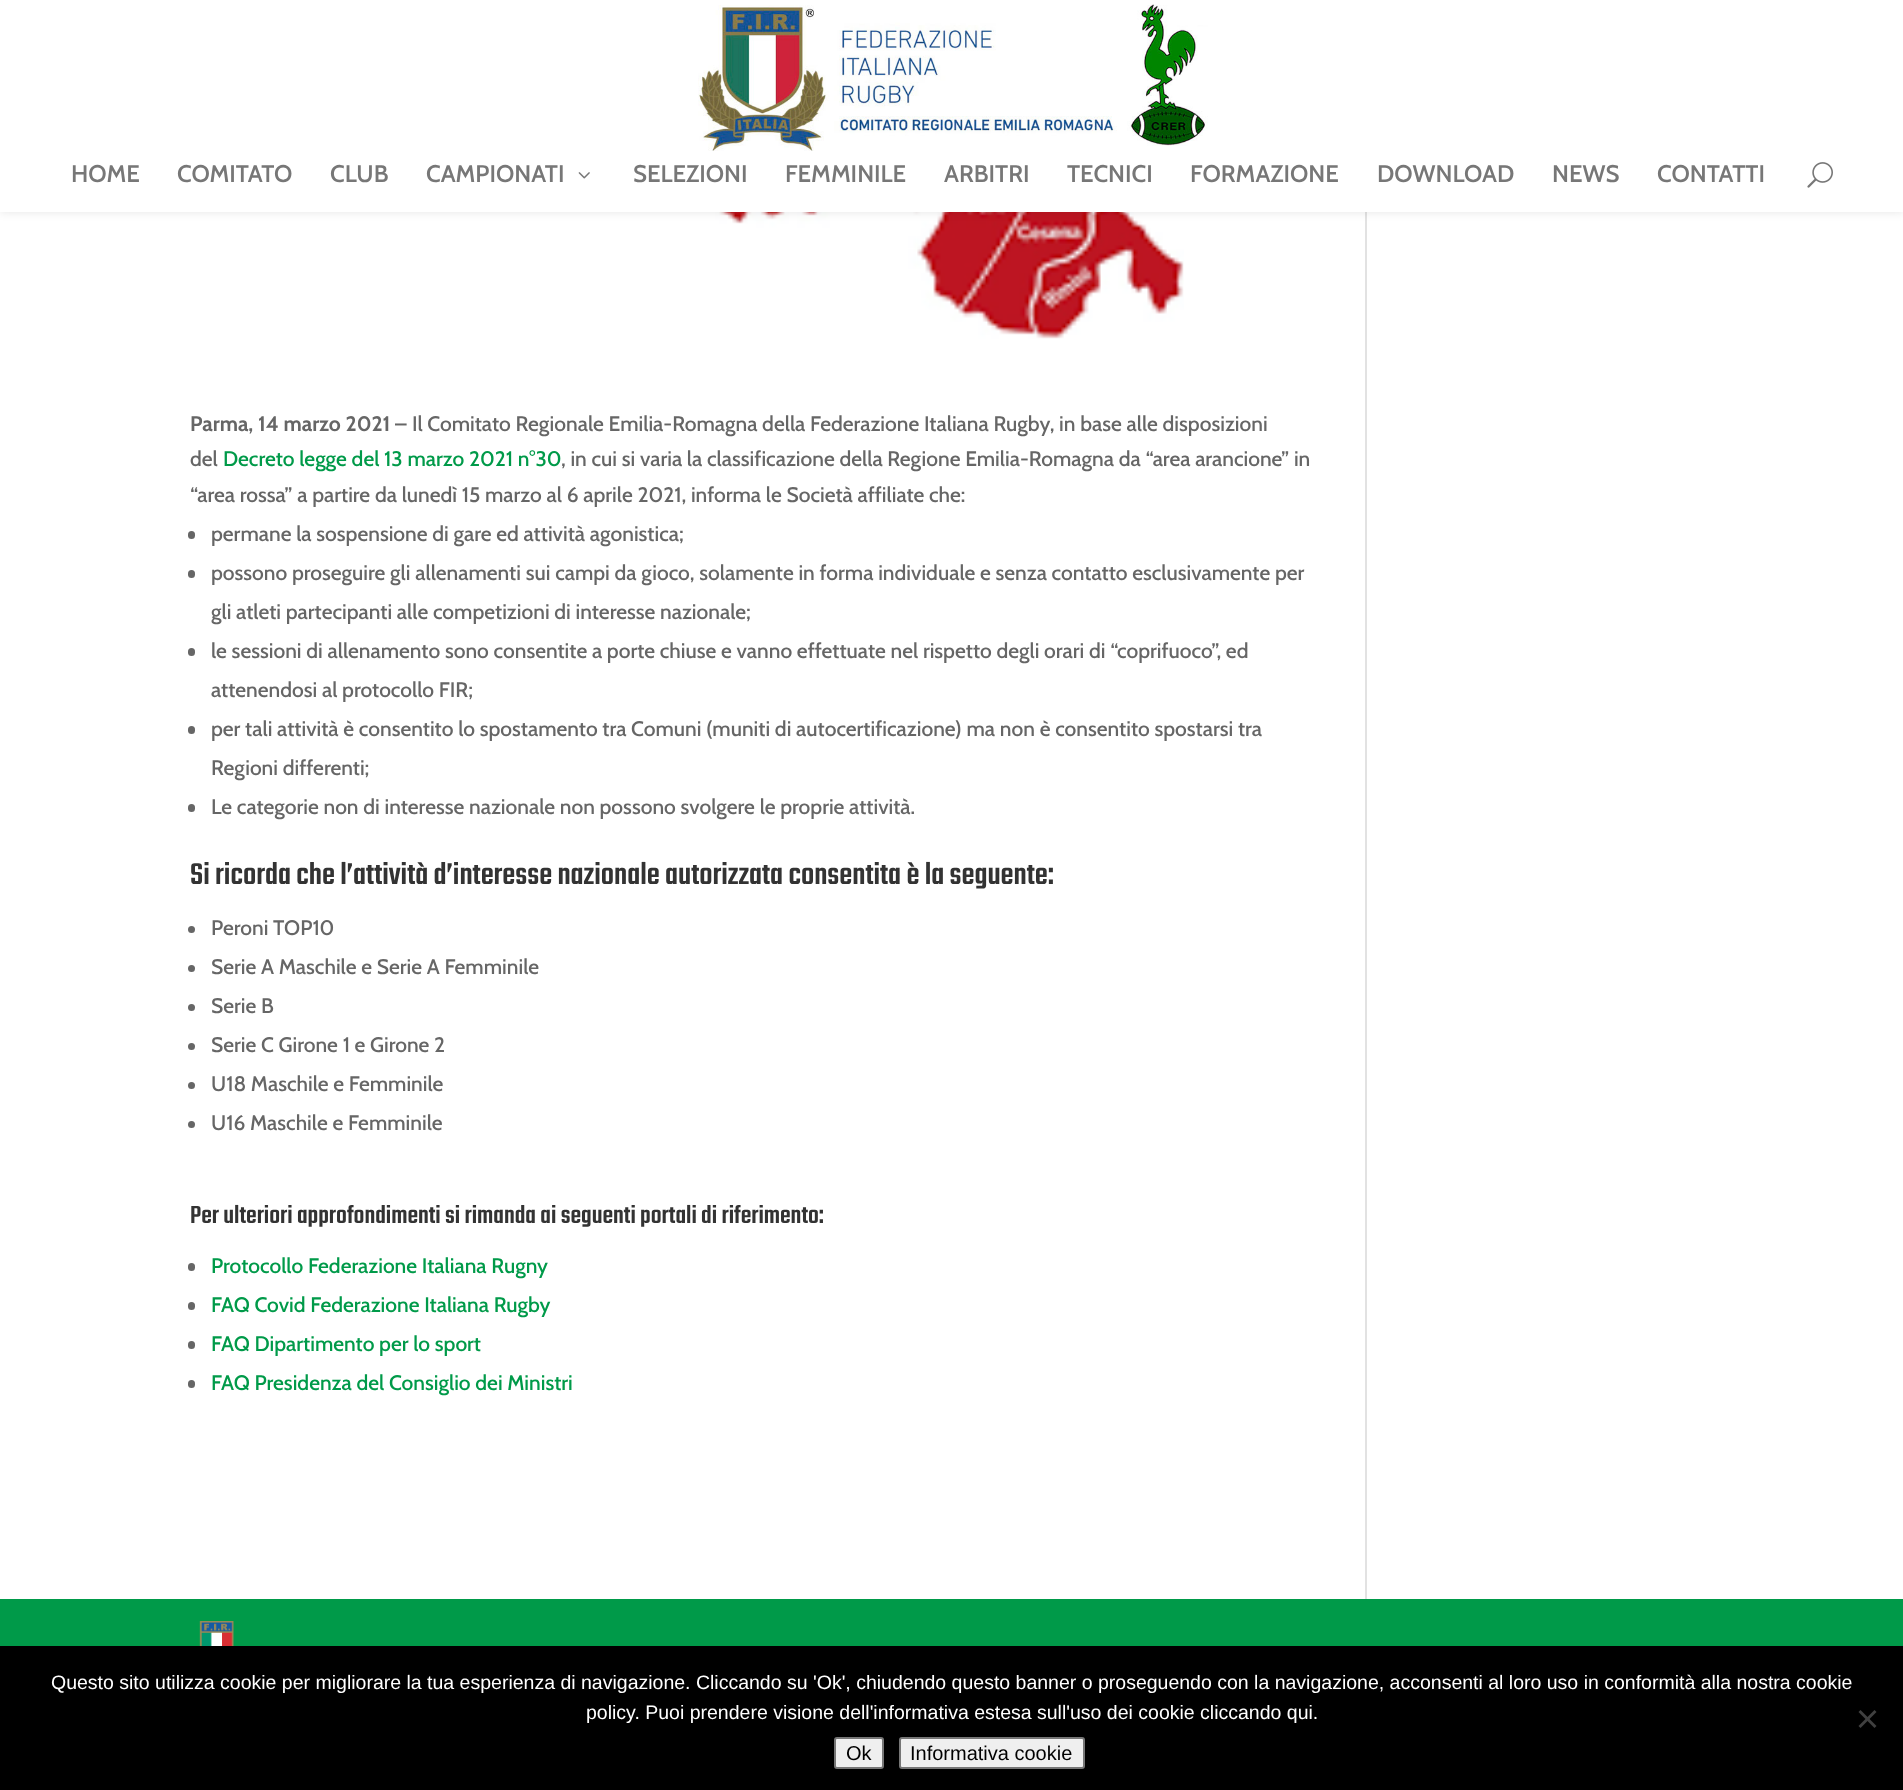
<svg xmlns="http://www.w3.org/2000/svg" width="1903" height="1790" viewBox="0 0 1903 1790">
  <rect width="100%" height="100%" fill="#fff"/>
  <image x="316" y="212" width="868" height="127" href="img/4.png"/>
  <path d="M1365 212h2v1387H1365z" fill="#e2e2e2"/>
  <path d="M0 0h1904v212H0z" fill="#0000001a" filter="blur(5px)"/>
  <path d="M0 0h1903v212H0z" fill="#fff"/>
  <image x="698" y="4" width="510" height="147" href="img/1.png"/>
  <image x="578" y="172" width="12" height="7" href="img/2.png"/>
  <image x="1807" y="162" width="26" height="26" href="img/3.png"/>
  <rect x="188" y="531" width="7" height="8" rx="3.5" fill="#666"/>
  <rect x="188" y="570" width="7" height="8" rx="3.5" fill="#666"/>
  <rect x="188" y="648" width="7" height="8" rx="3.5" fill="#666"/>
  <rect x="188" y="726" width="7" height="8" rx="3.5" fill="#666"/>
  <rect x="188" y="804" width="7" height="8" rx="3.5" fill="#666"/>
  <circle cx="191.5" cy="929.5" r="3.5" fill="#666"/>
  <circle cx="191.5" cy="968.5" r="3.5" fill="#666"/>
  <circle cx="191.5" cy="1007.5" r="3.5" fill="#666"/>
  <circle cx="191.5" cy="1046.5" r="3.5" fill="#666"/>
  <circle cx="191.5" cy="1085.5" r="3.5" fill="#666"/>
  <circle cx="191.5" cy="1124.5" r="3.5" fill="#666"/>
  <rect x="188" y="1263" width="7" height="8" rx="3.5" fill="#666"/>
  <rect x="188" y="1302" width="7" height="8" rx="3.5" fill="#666"/>
  <rect x="188" y="1341" width="7" height="8" rx="3.5" fill="#666"/>
  <rect x="188" y="1380" width="7" height="8" rx="3.5" fill="#666"/>
  <path d="M0 1599h1903v47H0z" fill="#009a49"/>
  <image x="199" y="1621" width="35" height="25" href="img/5.png"/>
  <path d="M0 1646h1903v144H0z" fill="#000"/>
  <path d="M1874.5 1710L1876.5 1712L1860.5 1728L1858.5 1726Z" fill="#404040"/>
  <path d="M1858.5 1712L1860.5 1710L1876.5 1726L1874.5 1728Z" fill="#404040"/>
  <rect x="835" y="1738" width="48" height="30" rx="2" fill="#efefef" stroke="#767676" stroke-width="2"/>
  <rect x="900" y="1738" width="184" height="30" rx="2" fill="#efefef" stroke="#767676" stroke-width="2"/>
  <g font-family="Cabin" font-size="24" font-weight="600" fill="#777">
    <text x="71" y="182">HOME</text>
    <text x="177" y="182">COMITATO</text>
    <text x="330" y="182">CLUB</text>
    <text x="426" y="182">CAMPIONATI</text>
    <text x="633" y="182">SELEZIONI</text>
    <text x="785" y="182">FEMMINILE</text>
    <text x="944" y="182">ARBITRI</text>
    <text x="1067" y="182">TECNICI</text>
    <text x="1190" y="182">FORMAZIONE</text>
    <text x="1377" y="182">DOWNLOAD</text>
    <text x="1552" y="182">NEWS</text>
    <text x="1657" y="182">CONTATTI</text>
  </g>
  <text x="190" y="431" font-family="Cabin" font-size="21" font-weight="bold" fill="#666">Parma, 14 marzo 2021 –</text>
  <g font-family="Cabin" font-size="21" font-weight="500" fill="#666">
    <text x="412" y="431">Il Comitato Regionale Emilia-Romagna della Federazione Italiana Rugby, in base alle disposizioni</text>
    <text x="190" y="466">del</text>
  </g>
  <text x="223" y="466" font-family="Cabin" font-size="21" font-weight="500" fill="#009a49">Decreto legge del 13 marzo 2021 n°30</text>
  <g font-family="Cabin" font-size="21" font-weight="500" fill="#666">
    <text x="561" y="466">, in cui si varia la classificazione della Regione Emilia-Romagna da “area arancione” in</text>
    <text x="190" y="502">“area rossa” a partire da lunedì 15 marzo al 6 aprile 2021, informa le Società affiliate che:</text>
    <text x="211" y="541">permane la sospensione di gare ed attività agonistica;</text>
    <text x="211" y="580">possono proseguire gli allenamenti sui campi da gioco, solamente in forma individuale e senza contatto esclusivamente per</text>
    <text x="211" y="619">gli atleti partecipanti alle competizioni di interesse nazionale;</text>
    <text x="211" y="658">le sessioni di allenamento sono consentite a porte chiuse e vanno effettuate nel rispetto degli orari di “coprifuoco”, ed</text>
    <text x="211" y="697">attenendosi al protocollo FIR;</text>
    <text x="211" y="736">per tali attività è consentito lo spostamento tra Comuni (muniti di autocertificazione) ma non è consentito spostarsi tra</text>
    <text x="211" y="775">Regioni differenti;</text>
    <text x="211" y="814">Le categorie non di interesse nazionale non possono svolgere le proprie attività.</text>
  </g>
  <text x="190" y="884" font-family="Teko" font-size="33" font-weight="500" fill="#333">Si ricorda che l’attività d’interesse nazionale autorizzata consentita è la seguente:</text>
  <g font-family="Cabin" font-size="21" font-weight="500" fill="#666">
    <text x="211" y="935">Peroni TOP10</text>
    <text x="211" y="974">Serie A Maschile e Serie A Femminile</text>
    <text x="211" y="1013">Serie B</text>
    <text x="211" y="1052">Serie C Girone 1 e Girone 2</text>
    <text x="211" y="1091">U18 Maschile e Femminile</text>
    <text x="211" y="1130">U16 Maschile e Femminile</text>
  </g>
  <text x="190" y="1223" font-family="Teko" font-size="27" font-weight="500" fill="#333">Per ulteriori approfondimenti si rimanda ai seguenti portali di riferimento:</text>
  <g font-family="Cabin" font-size="21" font-weight="500" fill="#009a49">
    <text x="211" y="1273">Protocollo Federazione Italiana Rugny</text>
    <text x="211" y="1312">FAQ Covid Federazione Italiana Rugby</text>
    <text x="211" y="1351">FAQ Dipartimento per lo sport</text>
    <text x="211" y="1390">FAQ Presidenza del Consiglio dei Ministri</text>
  </g>
  <g font-family="Liberation Sans" font-size="19.5" fill="#fff">
    <text x="51" y="1689">Questo sito utilizza cookie per migliorare la tua esperienza di navigazione. Cliccando su 'Ok', chiudendo questo banner o proseguendo con la navigazione, acconsenti al loro uso in conformità alla nostra cookie</text>
    <text x="586" y="1719">policy. Puoi prendere visione dell'informativa estesa sull'uso dei cookie cliccando qui.</text>
  </g>
  <g font-family="Liberation Sans" font-size="20" fill="#000">
    <text x="846" y="1760">Ok</text>
    <text x="910" y="1760">Informativa cookie</text>
  </g>
</svg>
